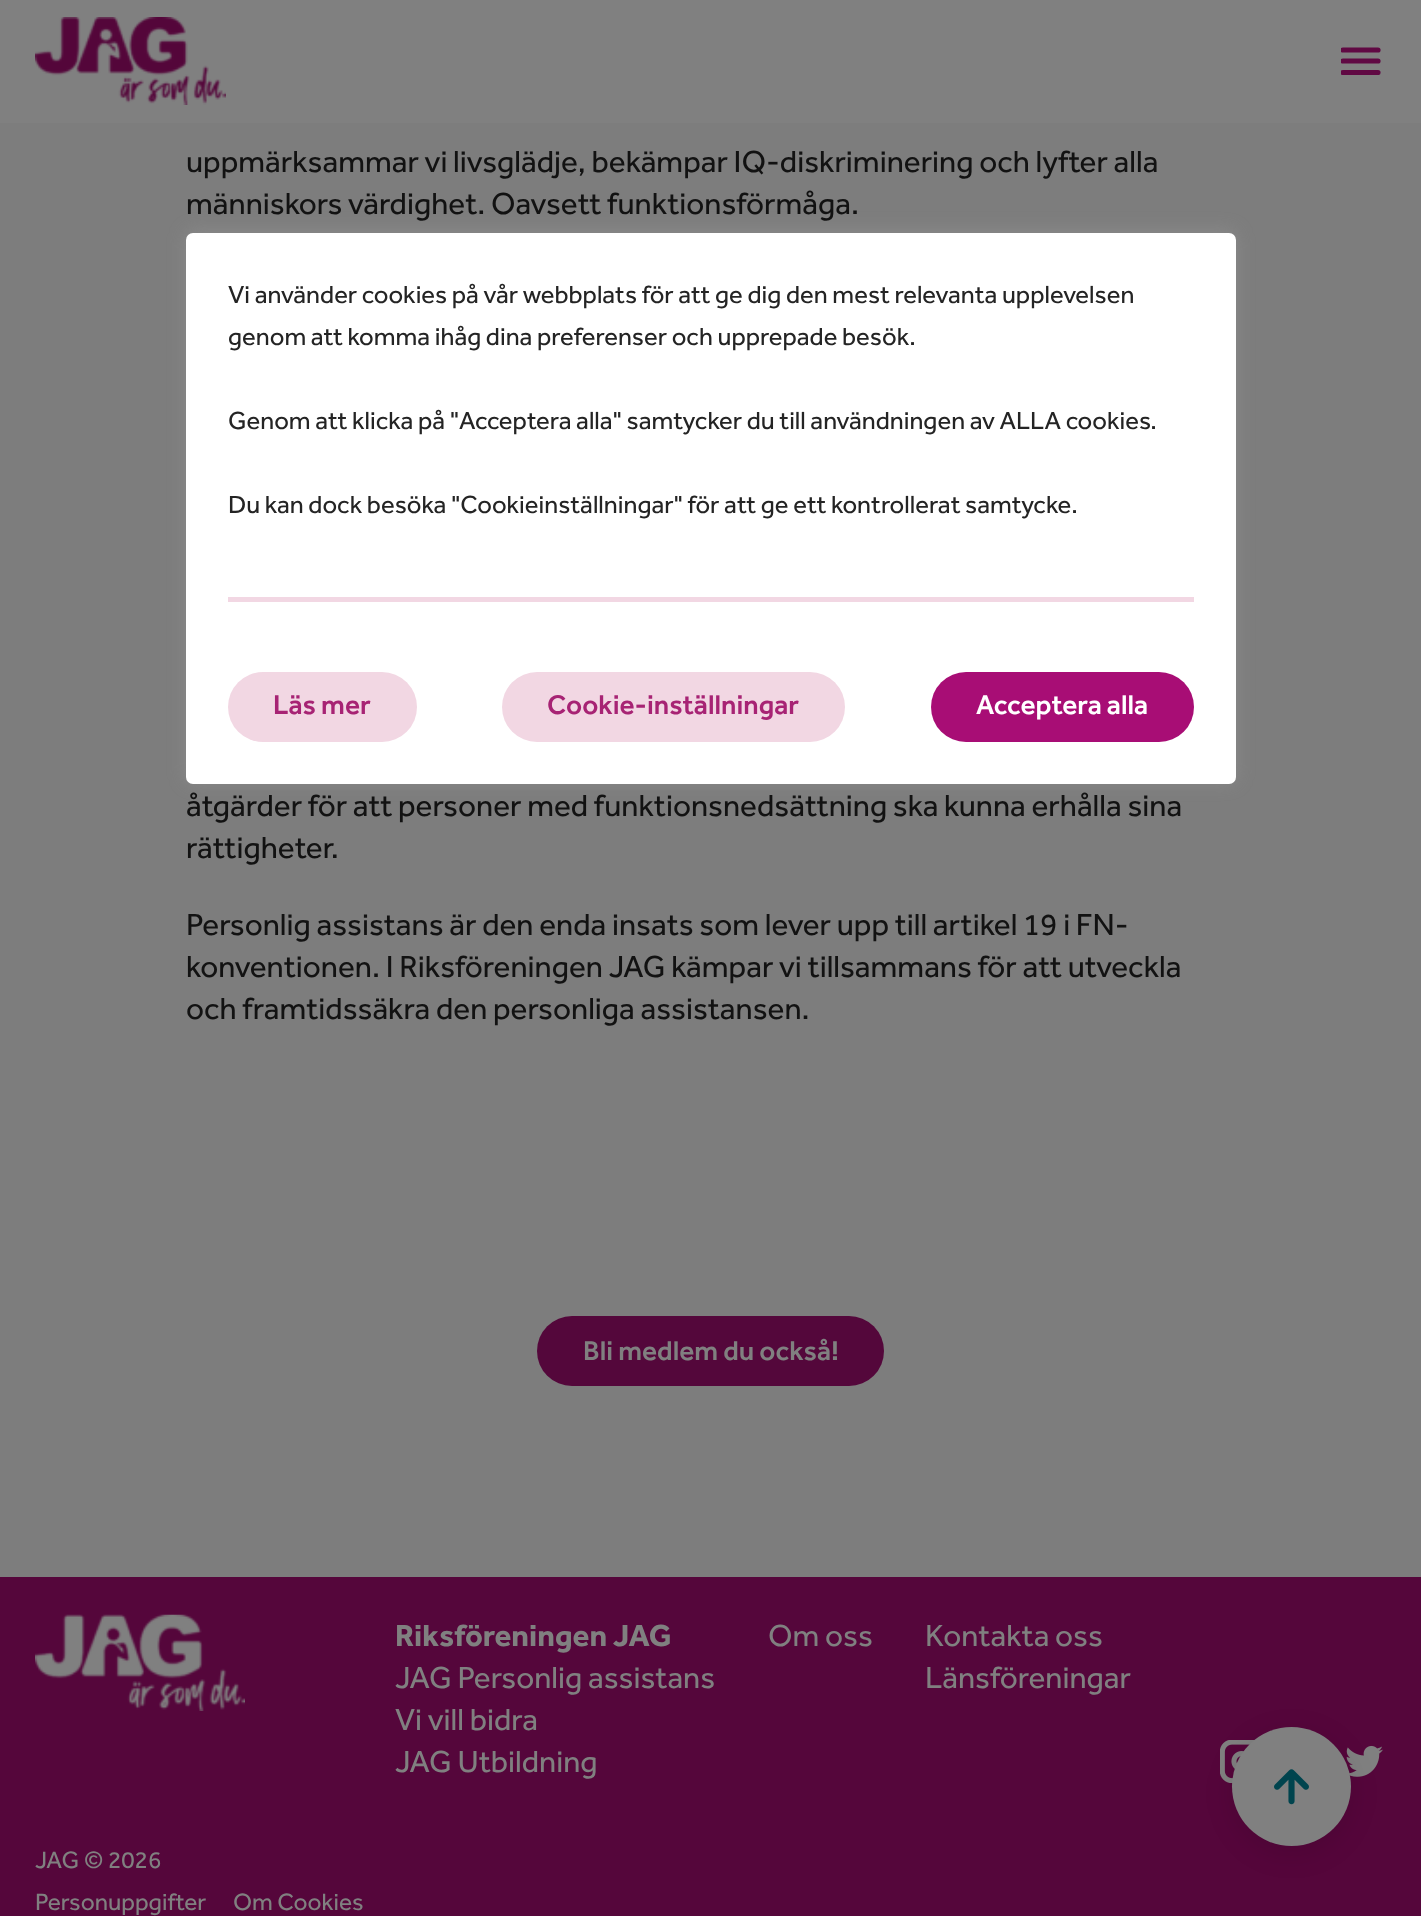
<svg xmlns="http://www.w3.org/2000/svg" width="1421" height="1916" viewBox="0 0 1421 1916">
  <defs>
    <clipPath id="clip1"><path d="M1341 47h40v28H1341z"/></clipPath>
  </defs>
  <rect width="100%" height="100%" fill="#7d7d7d"/>
  <path d="M0 0h1421v123H0z" fill="#808080"/>
  <image x="35" y="17" width="191" height="88" href="img/1.png"/>
  <g clip-path="url(#clip1)">
    <path d="M1343 61H1378M1343 50H1378M1343 72.5H1378" fill="none" stroke="#600943" stroke-width="5.2" stroke-linecap="round" stroke-linejoin="round"/>
  </g>
  <rect x="537" y="1316" width="347" height="70" rx="35" fill="#54073b"/>
  <path d="M0 1577h1421v339H0z" fill="#55063b"/>
  <image x="35" y="1614" width="210" height="97" href="img/2.png"/>
  <image x="1220" y="1740" width="35" height="43" href="img/3.png"/>
  <image x="1346" y="1745" width="37" height="32" href="img/4.png"/>
  <rect x="1232" y="1734" width="119" height="119" rx="59.5" fill="#0000001a" filter="blur(14px)"/>
  <circle cx="1291.5" cy="1786.5" r="59.5" fill="#808080"/>
  <image x="1274" y="1769" width="35" height="36" href="img/5.png"/>
  <rect x="186" y="231" width="1050" height="551" rx="7" fill="#acabab4d" filter="blur(9px)"/>
  <rect x="186" y="233" width="1050" height="551" rx="7" fill="#fff"/>
  <path d="M228 597h966v5H228z" fill="#f2d7e3"/>
  <rect x="228" y="672" width="189" height="70" rx="35" fill="#f2d7e3"/>
  <rect x="502" y="672" width="343" height="70" rx="35" fill="#f2d7e3"/>
  <rect x="931" y="672" width="263" height="70" rx="35" fill="#a80d75"/>
  <g font-family="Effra" font-size="31.5" fill="#121212">
    <text x="186" y="172">uppmärksammar vi livsglädje, bekämpar IQ-diskriminering och lyfter alla</text>
    <text x="186" y="214">människors värdighet. Oavsett funktionsförmåga.</text>
    <text x="186" y="816">åtgärder för att personer med funktionsnedsättning ska kunna erhålla sina</text>
    <text x="186" y="858">rättigheter.</text>
    <text x="186" y="935">Personlig assistans är den enda insats som lever upp till artikel 19 i FN-</text>
    <text x="186" y="977">konventionen. I Riksföreningen JAG kämpar vi tillsammans för att utveckla</text>
    <text x="186" y="1019">och framtidssäkra den personliga assistansen.</text>
  </g>
  <text x="583" y="1360" font-family="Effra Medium" font-size="28" font-weight="500" fill="#808080">Bli medlem du också!</text>
  <text x="395" y="1646" font-family="Effra" font-size="31.5" font-weight="bold" fill="#808080">Riksföreningen JAG</text>
  <g font-family="Effra" font-size="31.5" fill="#808080">
    <text x="395" y="1688">JAG Personlig assistans</text>
    <text x="395" y="1730">Vi vill bidra</text>
    <text x="395" y="1772">JAG Utbildning</text>
    <text x="768" y="1646">Om oss</text>
    <text x="925" y="1646">Kontakta oss</text>
    <text x="925" y="1688">Länsföreningar</text>
  </g>
  <g font-family="Effra" font-size="24.5" fill="#808080">
    <text x="35" y="1868">JAG © 2026</text>
    <text x="35" y="1910">Personuppgifter</text>
    <text x="233" y="1910">Om Cookies</text>
  </g>
  <g font-family="Effra" font-size="25.65" fill="#242424">
    <text x="228" y="303">Vi använder cookies på vår webbplats för att ge dig den mest relevanta upplevelsen</text>
    <text x="228" y="345">genom att komma ihåg dina preferenser och upprepade besök.</text>
    <text x="228" y="429">Genom att klicka på "Acceptera alla" samtycker du till användningen av ALLA cookies.</text>
    <text x="228" y="513">Du kan dock besöka "Cookieinställningar" för att ge ett kontrollerat samtycke.</text>
  </g>
  <g font-family="Effra Medium" font-size="28" font-weight="500" fill="#a72374">
    <text x="273" y="714">Läs mer</text>
    <text x="547" y="714">Cookie-inställningar</text>
  </g>
  <text x="976" y="714" font-family="Effra Medium" font-size="28" font-weight="500" fill="#fff">Acceptera alla</text>
</svg>
